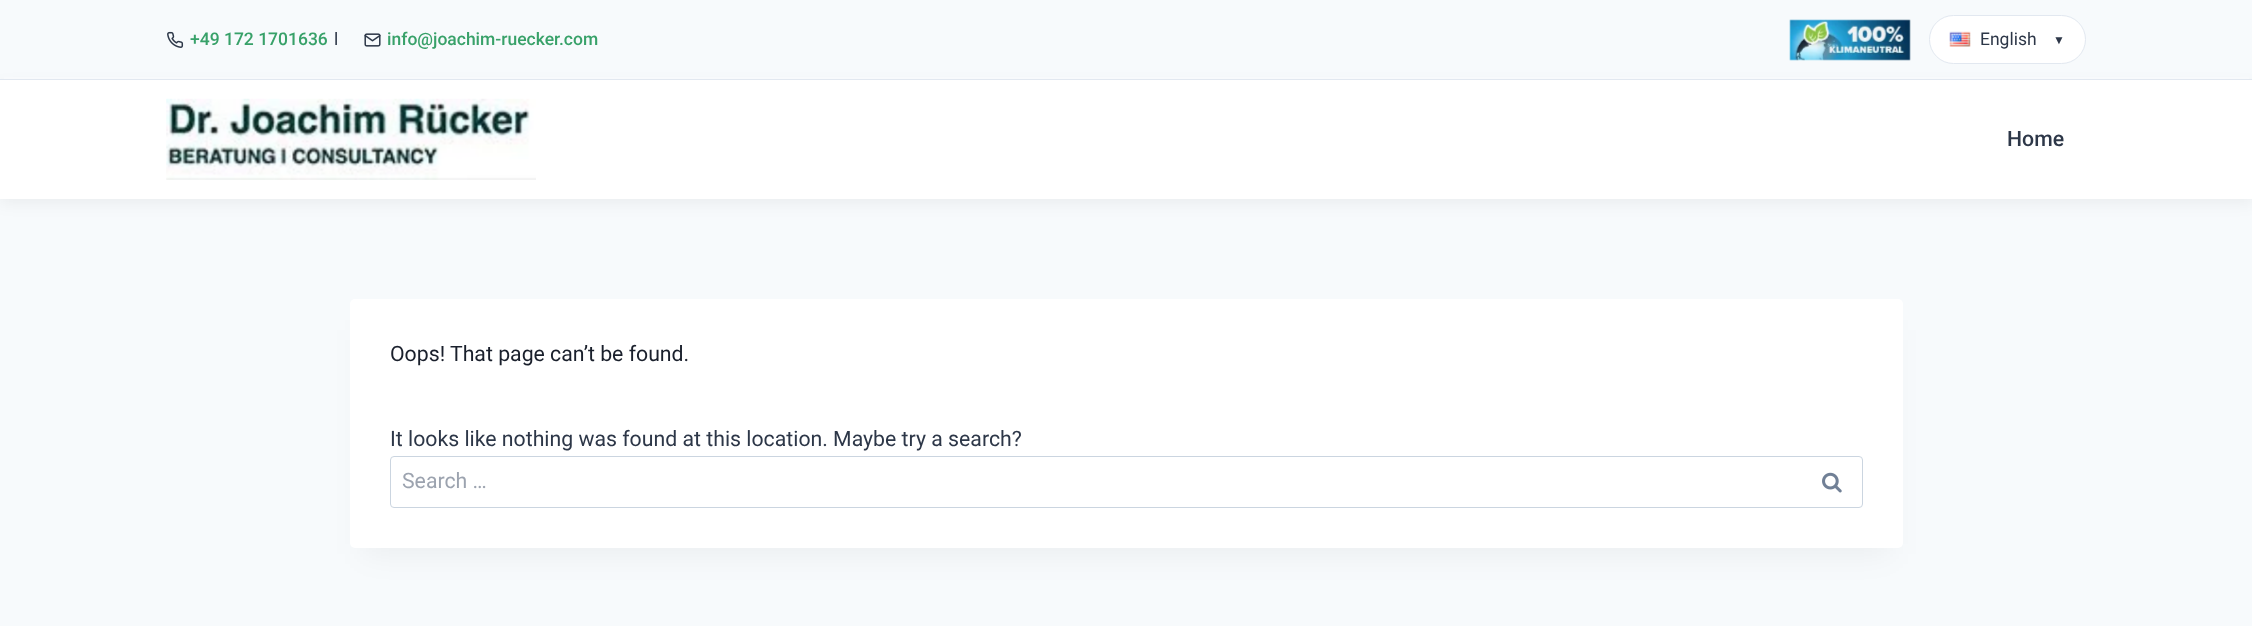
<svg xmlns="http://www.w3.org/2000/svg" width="2252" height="626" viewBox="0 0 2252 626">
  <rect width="100%" height="100%" fill="#f7fafc"/>
  <path d="M0 85h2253v119H0z" fill="#0000000d" filter="blur(7.5px)"/>
  <path d="M4 77h2245v2H4z" fill="#f8fafc"/>
  <path d="M0 79h2252v1H0z" fill="#e2e8f0"/>
  <image x="167" y="31" width="17" height="17" href="img/1.png"/>
  <image x="364" y="33" width="17" height="14" href="img/2.png"/>
  <image x="1789" y="19" width="122" height="42" href="img/3.png"/>
  <rect x="1929.5" y="15.5" width="156" height="48" rx="24" fill="#fff" stroke="#e2e8f0"/>
  <image x="1949" y="31" width="22" height="16" href="img/4.png"/>
  <path d="M0 80h2252v119H0z" fill="#fff"/>
  <image x="166" y="98" width="370" height="82" href="img/5.png"/>
  <path d="M363 330h1527v224H363z" fill="#0000000d" filter="blur(15.5px)"/>
  <rect x="350" y="299" width="1553" height="249" rx="5" fill="#fff"/>
  <rect x="390.5" y="456.5" width="1472" height="51" rx="3.5" fill="none" stroke="#cbd5e0"/>
  <image x="1822" y="472" width="20" height="21" href="img/6.png"/>
  <text x="190" y="45" font-family="Roboto" font-size="17.5" font-weight="500" fill="#38a169">+49 172 1701636</text>
  <text x="334" y="45" font-family="Roboto" font-size="17.5" fill="#2d3748">l</text>
  <text x="387" y="45" font-family="Roboto" font-size="17.5" font-weight="500" fill="#38a169">info@joachim-ruecker.com</text>
  <text x="1980" y="45" font-family="Roboto" font-size="17.5" fill="#2d3748">English</text>
  <text x="2053" y="44" font-family="Liberation Sans" font-size="12" fill="#2d3748">▼</text>
  <text x="2007" y="146" font-family="Roboto" font-size="21.25" font-weight="500" fill="#2d3748">Home</text>
  <text x="390" y="361" font-family="Roboto" font-size="21.25" fill="#1a202c">Oops! That page can’t be found.</text>
  <text x="390" y="446" font-family="Roboto" font-size="21.25" fill="#2d3748">It looks like nothing was found at this location. Maybe try a search?</text>
  <text x="402" y="488" font-family="Roboto" font-size="21.25" fill="#9ca3af">Search …</text>
</svg>
